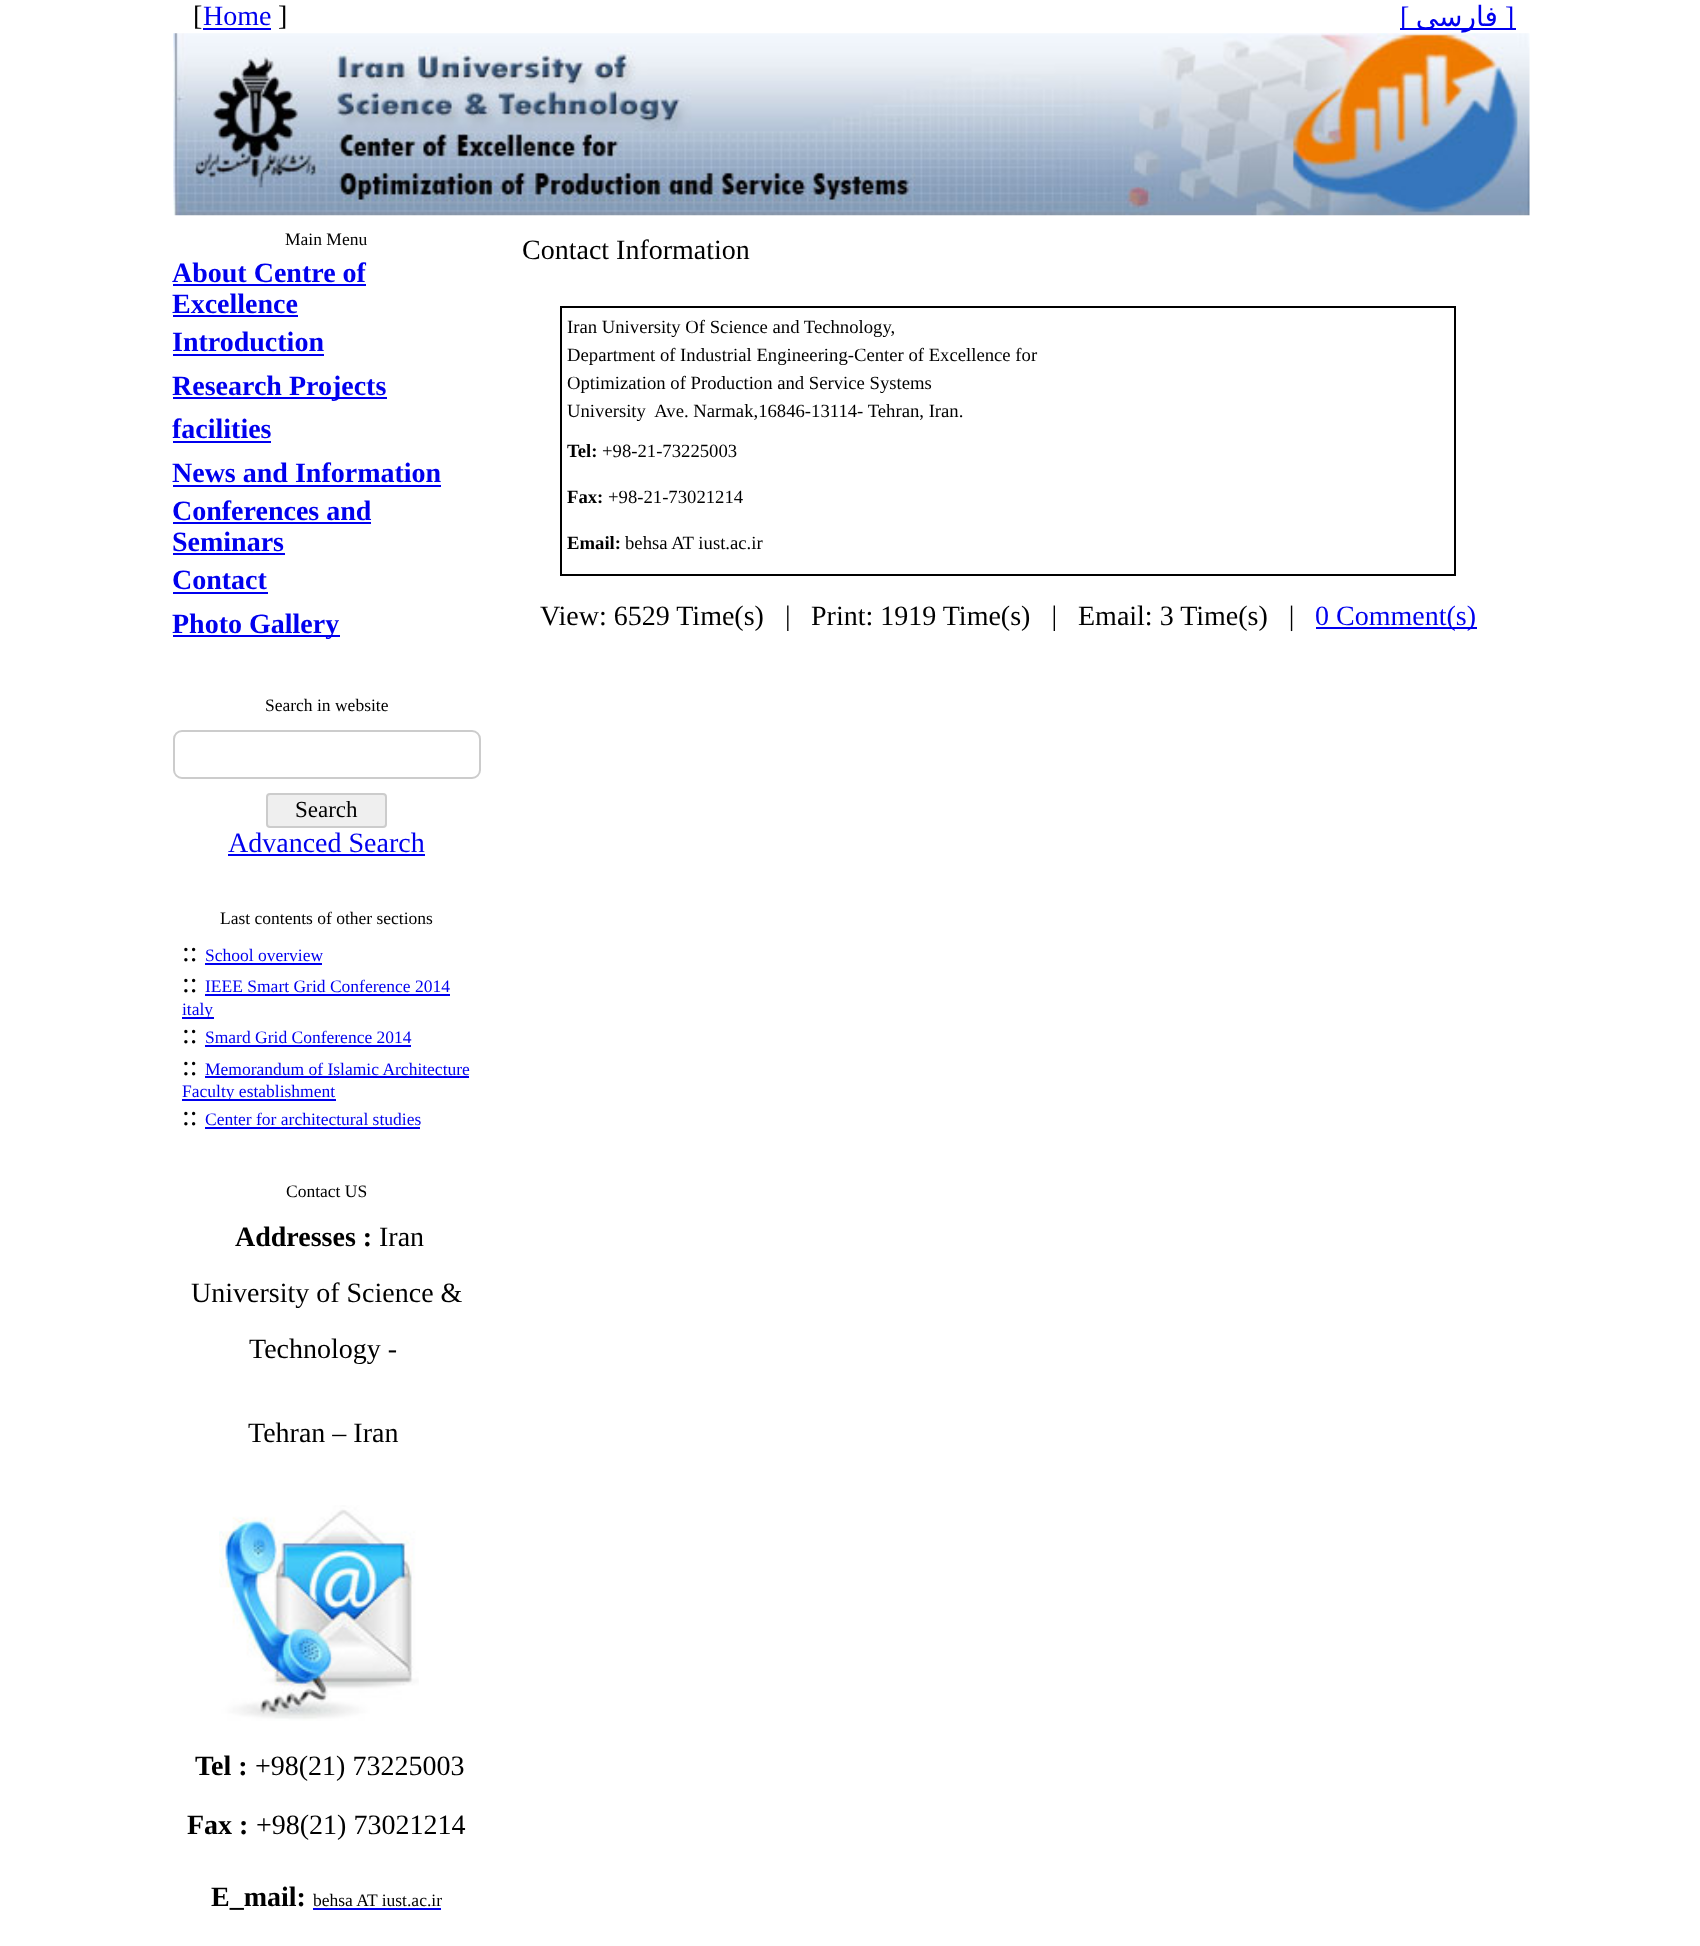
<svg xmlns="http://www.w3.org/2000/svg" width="1700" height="1946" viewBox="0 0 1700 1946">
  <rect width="100%" height="100%" fill="#fff"/>
  <path d="M203 28h68v2H203z" fill="#00e"/>
  <path d="M1400 28h116v2H1400z" fill="#00e"/>
  <image x="173" y="33" width="1357" height="183" href="img/1.png"/>
  <path d="M173 284h193v2H173z" fill="#00e"/>
  <path d="M173 315h125v2H173z" fill="#00e"/>
  <path d="M173 354h151v2H173z" fill="#00e"/>
  <path d="M173 397h214v2H173z" fill="#00e"/>
  <path d="M173 441h98v2H173z" fill="#00e"/>
  <path d="M173 485h268v2H173z" fill="#00e"/>
  <path d="M173 522h198v2H173z" fill="#00e"/>
  <path d="M173 553h112v2H173z" fill="#00e"/>
  <path d="M173 592h95v2H173z" fill="#00e"/>
  <path d="M173 635h167v2H173z" fill="#00e"/>
  <rect x="174" y="731" width="306" height="47" rx="8" fill="none" stroke="#ccc" stroke-width="2"/>
  <rect x="267" y="794" width="119" height="33" rx="3" fill="#efefef" stroke="#ccc" stroke-width="2"/>
  <path d="M228 854h197v2H228z" fill="#00e"/>
  <path d="M205 963h117v2H205z" fill="#00e"/>
  <path d="M205 994h245v2H205z" fill="#00e"/>
  <path d="M182 1017h32v2H182z" fill="#00e"/>
  <path d="M205 1045h206v2H205z" fill="#00e"/>
  <path d="M205 1076h264v2H205z" fill="#00e"/>
  <path d="M182 1099h154v2H182z" fill="#00e"/>
  <path d="M205 1127h215v2H205z" fill="#00e"/>
  <image x="219" y="1505" width="200" height="216" href="img/2.png"/>
  <path d="M313 1908h128v2H313z" fill="#00e"/>
  <path d="M561 307h894v268H561z" fill="none" stroke="#000" stroke-width="2"/>
  <path d="M1316 627h161v2H1316z" fill="#00e"/>
  <text x="193" y="25" font-family="Liberation Serif" font-size="28" fill="#000">[</text>
  <text x="203" y="25" font-family="Liberation Serif" font-size="28" fill="#00e">Home</text>
  <text x="278" y="25" font-family="Liberation Serif" font-size="28" fill="#000">]</text>
  <text x="1400" y="26" font-family="Liberation Serif" font-size="28" fill="#00e">[</text>
  <text x="1498" y="26" font-family="DejaVu Sans" font-size="28" direction="rtl" fill="#00e">فارسی</text>
  <text x="1505" y="26" font-family="Liberation Serif" font-size="28" fill="#00e">]</text>
  <text x="285" y="245" font-family="Liberation Serif" font-size="17.5" fill="#000">Main Menu</text>
  <g font-family="Liberation Serif" font-size="28" font-weight="bold" fill="#00e">
    <text x="172" y="282">About Centre of</text>
    <text x="172" y="313">Excellence</text>
    <text x="172" y="351">Introduction</text>
    <text x="172" y="395">Research Projects</text>
    <text x="172" y="438">facilities</text>
    <text x="172" y="482">News and Information</text>
    <text x="172" y="520">Conferences and</text>
    <text x="172" y="551">Seminars</text>
    <text x="172" y="589">Contact</text>
    <text x="172" y="633">Photo Gallery</text>
  </g>
  <text x="265" y="711" font-family="Liberation Serif" font-size="17.5" fill="#000">Search in website</text>
  <text x="295" y="817" font-family="Liberation Serif" font-size="23" fill="#000">Search</text>
  <text x="228" y="852" font-family="Liberation Serif" font-size="28" fill="#00e">Advanced Search</text>
  <text x="220" y="924" font-family="Liberation Serif" font-size="17.5" fill="#000">Last contents of other sections</text>
  <text x="182" y="961" font-family="Liberation Serif" font-size="28" fill="#000">::</text>
  <text x="205" y="961" font-family="Liberation Serif" font-size="17.5" fill="#00e">School overview</text>
  <text x="182" y="992" font-family="Liberation Serif" font-size="28" fill="#000">::</text>
  <g font-family="Liberation Serif" font-size="17.5" fill="#00e">
    <text x="205" y="992">IEEE Smart Grid Conference 2014</text>
    <text x="182" y="1015">italy</text>
  </g>
  <text x="182" y="1043" font-family="Liberation Serif" font-size="28" fill="#000">::</text>
  <text x="205" y="1043" font-family="Liberation Serif" font-size="17.5" fill="#00e">Smard Grid Conference 2014</text>
  <text x="182" y="1075" font-family="Liberation Serif" font-size="28" fill="#000">::</text>
  <g font-family="Liberation Serif" font-size="17.5" fill="#00e">
    <text x="205" y="1075">Memorandum of Islamic Architecture</text>
    <text x="182" y="1097">Faculty establishment</text>
  </g>
  <text x="182" y="1125" font-family="Liberation Serif" font-size="28" fill="#000">::</text>
  <text x="205" y="1125" font-family="Liberation Serif" font-size="17.5" fill="#00e">Center for architectural studies</text>
  <text x="286" y="1197" font-family="Liberation Serif" font-size="17.5" fill="#000">Contact US</text>
  <text x="235" y="1246" font-family="Liberation Serif" font-size="28" font-weight="bold" fill="#000">Addresses :</text>
  <g font-family="Liberation Serif" font-size="28" fill="#000">
    <text x="379" y="1246">Iran</text>
    <text x="191" y="1302">University of Science &amp;</text>
    <text x="249" y="1358">Technology -</text>
    <text x="248" y="1442">Tehran – Iran</text>
  </g>
  <text x="195" y="1775" font-family="Liberation Serif" font-size="28" font-weight="bold" fill="#000">Tel :</text>
  <text x="255" y="1775" font-family="Liberation Serif" font-size="28" fill="#000">+98(21) 73225003</text>
  <text x="187" y="1834" font-family="Liberation Serif" font-size="28" font-weight="bold" fill="#000">Fax :</text>
  <text x="256" y="1834" font-family="Liberation Serif" font-size="28" fill="#000">+98(21) 73021214</text>
  <text x="211" y="1906" font-family="Liberation Serif" font-size="28" font-weight="bold" fill="#000">E_mail:</text>
  <text x="313" y="1906" font-family="Liberation Serif" font-size="17.5" fill="#000">behsa AT iust.ac.ir</text>
  <text x="522" y="259" font-family="Liberation Serif" font-size="28" fill="#000">Contact Information</text>
  <g font-family="Liberation Serif" font-size="18.7" fill="#000">
    <text x="567" y="333">Iran University Of Science and Technology,</text>
    <text x="567" y="361">Department of Industrial Engineering-Center of Excellence for</text>
    <text x="567" y="389">Optimization of Production and Service Systems</text>
    <text x="567" y="417" xml:space="preserve">University  Ave. Narmak,16846-13114- Tehran, Iran.</text>
  </g>
  <text x="567" y="457" font-family="Liberation Serif" font-size="18.7" font-weight="bold" fill="#000">Tel:</text>
  <text x="602" y="457" font-family="Liberation Serif" font-size="18.7" fill="#000">+98-21-73225003</text>
  <text x="567" y="503" font-family="Liberation Serif" font-size="18.7" font-weight="bold" fill="#000">Fax:</text>
  <text x="608" y="503" font-family="Liberation Serif" font-size="18.7" fill="#000">+98-21-73021214</text>
  <text x="567" y="549" font-family="Liberation Serif" font-size="18.7" font-weight="bold" fill="#000">Email:</text>
  <text x="625" y="549" font-family="Liberation Serif" font-size="18.7" fill="#000">behsa AT iust.ac.ir</text>
  <g font-family="Liberation Serif" font-size="28" fill="#000">
    <text x="540" y="625" xml:space="preserve">View: 6529 Time(s)   |</text>
    <text x="811" y="625" xml:space="preserve">Print: 1919 Time(s)   |</text>
    <text x="1078" y="625" xml:space="preserve">Email: 3 Time(s)   |</text>
  </g>
  <text x="1315" y="625" font-family="Liberation Serif" font-size="28" fill="#00e">0 Comment(s)</text>
</svg>
